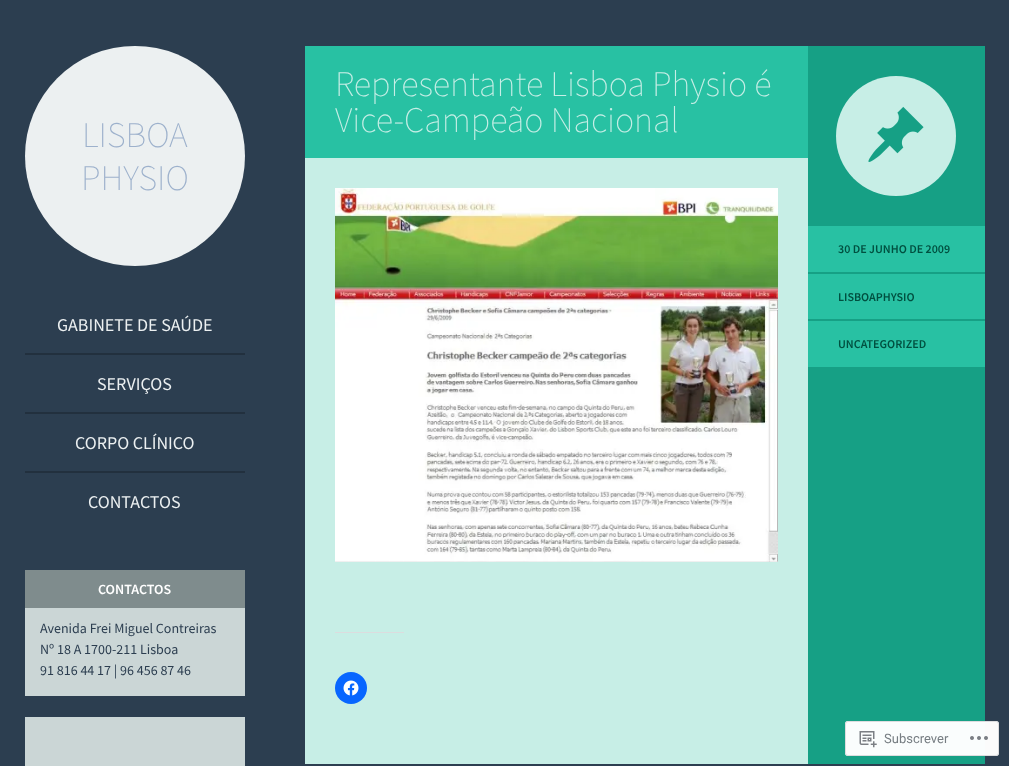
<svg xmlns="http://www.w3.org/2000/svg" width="1009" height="766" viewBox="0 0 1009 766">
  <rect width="100%" height="100%" fill="#2c3e50"/>
  <circle cx="135" cy="156" r="110" fill="#ecf0f1"/>
  <path d="M25 353h220v2H25z" fill="#22303e"/>
  <path d="M25 412h220v2H25z" fill="#22303e"/>
  <path d="M25 471h220v2H25z" fill="#22303e"/>
  <path d="M305 158h503v606H305z" fill="#c7eee6"/>
  <path d="M305 46h503v112H305z" fill="#28c1a3"/>
  <image x="335" y="188" width="443" height="374" href="img/1.png"/>
  <path d="M335 632h69v1H335z" fill="#dcdcde"/>
  <circle cx="351" cy="688" r="16" fill="#0866ff"/>
  <image x="343" y="680" width="16" height="16" href="img/2.png"/>
  <path d="M808 46h177v718H808z" fill="#16a085"/>
  <circle cx="896" cy="136" r="60" fill="#c7eee6"/>
  <image x="868" y="106" width="56" height="56" href="img/3.png"/>
  <path d="M808 226h177v46H808z" fill="#28c1a3"/>
  <path d="M808 274h177v45H808z" fill="#28c1a3"/>
  <path d="M808 321h177v46H808z" fill="#28c1a3"/>
  <path d="M25 608h220v88H25z" fill="#cbd6d6"/>
  <path d="M25 570h220v38H25z" fill="#7f8c8d"/>
  <path d="M25 717h220v49H25z" fill="#cbd6d6"/>
  <rect x="845" y="721" width="154" height="35" rx="3" fill="#fffffffa"/>
  <rect x="845.5" y="721.5" width="153" height="34" rx="2.5" fill="none" stroke="#dcdcdefa"/>
  <image x="859" y="731" width="18" height="17" href="img/4.png"/>
  <image x="970" y="736" width="18" height="4" href="img/5.png"/>
  <g font-family="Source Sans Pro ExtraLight" font-size="36" font-weight="200" fill="#9db1cc">
    <text x="82" y="147">LISBOA</text>
    <text x="81" y="190">PHYSIO</text>
  </g>
  <g font-family="Source Sans Pro" font-size="18" fill="#ecf0f1">
    <text x="57" y="331">GABINETE DE SAÚDE</text>
    <text x="97" y="390">SERVIÇOS</text>
    <text x="75" y="449">CORPO CLÍNICO</text>
    <text x="88" y="508">CONTACTOS</text>
  </g>
  <g font-family="Source Sans Pro ExtraLight" font-size="36" font-weight="200" fill="#c7eee6">
    <text x="335" y="96">Representante Lisboa Physio é</text>
    <text x="335" y="132">Vice-Campeão Nacional</text>
  </g>
  <g font-family="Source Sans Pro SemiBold" font-size="12" font-weight="600" fill="#005040">
    <text x="838" y="253">30 DE JUNHO DE 2009</text>
    <text x="838" y="301">LISBOAPHYSIO</text>
    <text x="838" y="348">UNCATEGORIZED</text>
  </g>
  <text x="98" y="594" font-family="Source Sans Pro SemiBold" font-size="14" font-weight="600" fill="#fff">CONTACTOS</text>
  <g font-family="Source Sans Pro" font-size="14" fill="#2c3e50">
    <text x="40" y="633">Avenida Frei Miguel Contreiras</text>
    <text x="40" y="654">Nº 18 A 1700-211 Lisboa</text>
    <text x="40" y="675">91 816 44 17 | 96 456 87 46</text>
  </g>
  <text x="884" y="743" font-family="Roboto" font-size="13" fill="#767d82">Subscrever</text>
</svg>
